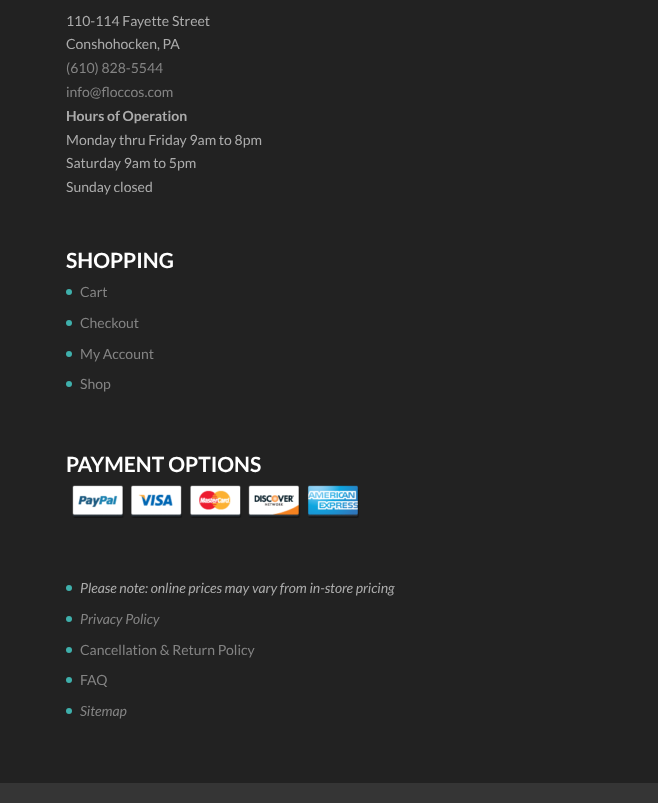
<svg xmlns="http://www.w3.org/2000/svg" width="658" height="803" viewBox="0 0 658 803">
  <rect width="100%" height="100%" fill="#222"/>
  <circle cx="69" cy="292" r="3" fill="#3fb0ac"/>
  <circle cx="69" cy="323" r="3" fill="#3fb0ac"/>
  <circle cx="69" cy="354" r="3" fill="#3fb0ac"/>
  <circle cx="69" cy="384" r="3" fill="#3fb0ac"/>
  <image x="72" y="485" width="287" height="33" href="img/1.png"/>
  <circle cx="69" cy="588" r="3" fill="#3fb0ac"/>
  <circle cx="69" cy="619" r="3" fill="#3fb0ac"/>
  <circle cx="69" cy="650" r="3" fill="#3fb0ac"/>
  <circle cx="69" cy="680" r="3" fill="#3fb0ac"/>
  <circle cx="69" cy="711" r="3" fill="#3fb0ac"/>
  <path d="M0 783h658v20H0z" fill="#353535"/>
  <g font-family="Lato" font-size="14" fill="#acacac">
    <text x="66" y="26">110-114 Fayette Street</text>
    <text x="66" y="49">Conshohocken, PA</text>
  </g>
  <g font-family="Lato" font-size="14" fill="#848484">
    <text x="66" y="73">(610) 828-5544</text>
    <text x="66" y="97">info@floccos.com</text>
  </g>
  <text x="66" y="121" font-family="Lato" font-size="14" font-weight="bold" fill="#acacac">Hours of Operation</text>
  <g font-family="Lato" font-size="14" fill="#acacac">
    <text x="66" y="145">Monday thru Friday 9am to 8pm</text>
    <text x="66" y="168">Saturday 9am to 5pm</text>
    <text x="66" y="192">Sunday closed</text>
  </g>
  <text x="66" y="268" font-family="Lato" font-size="21" font-weight="bold" fill="#fff">SHOPPING</text>
  <g font-family="Lato" font-size="14" fill="#848484">
    <text x="80" y="297">Cart</text>
    <text x="80" y="328">Checkout</text>
    <text x="80" y="359">My Account</text>
    <text x="80" y="389">Shop</text>
  </g>
  <text x="66" y="472" font-family="Lato" font-size="21" font-weight="bold" fill="#fff">PAYMENT OPTIONS</text>
  <text x="80" y="593" font-family="Lato" font-size="14" font-style="italic" fill="#acacac">Please note: online prices may vary from in-store pricing</text>
  <text x="80" y="624" font-family="Lato" font-size="14" font-style="italic" fill="#848484">Privacy Policy</text>
  <g font-family="Lato" font-size="14" fill="#848484">
    <text x="80" y="655">Cancellation &amp; Return Policy</text>
    <text x="80" y="685">FAQ</text>
  </g>
  <text x="80" y="716" font-family="Lato" font-size="14" font-style="italic" fill="#848484">Sitemap</text>
</svg>
